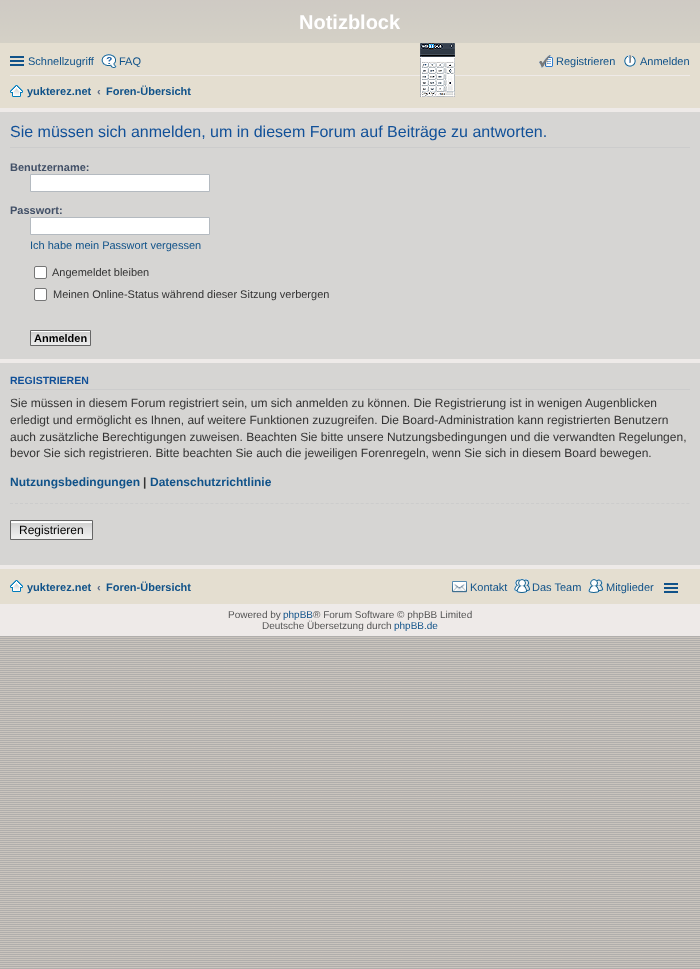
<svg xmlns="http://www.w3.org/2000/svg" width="700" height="969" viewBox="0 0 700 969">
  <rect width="100%" height="100%" fill="#fff"/>
  <image x="0" y="647" width="700" height="322" href="img/1.png"/>
  <image x="0" y="636" width="700" height="11" href="img/2.png"/>
  <path d="M0 108h700v528H0z" fill="#eeeae8"/>
  <image x="0" y="0" width="700" height="43" href="img/3.png"/>
  <path d="M0 43h700v65H0z" fill="#e4ded0"/>
  <path d="M10 75h680v1H10z" fill="#eeeae8"/>
  <image x="420" y="43" width="35" height="54" href="img/4.png"/>
  <path d="M10 56h14v2H10z" fill="#105289"/>
  <path d="M10 60h14v2H10z" fill="#105289"/>
  <path d="M10 64h14v2H10z" fill="#105289"/>
  <image x="101" y="54" width="16" height="14" href="img/5.png"/>
  <image x="539" y="55" width="14" height="13" href="img/6.png"/>
  <image x="624" y="55" width="12" height="12" href="img/7.png"/>
  <image x="10" y="85" width="13" height="12" href="img/8.png"/>
  <path d="M0 112h700v247H0z" fill="#d6d5d3"/>
  <path d="M10 147h680v1H10z" fill="#ccc"/>
  <path d="M30.5 174.5h179v17H30.5z" fill="#fff" stroke="#b4bac0"/>
  <path d="M30.5 217.5h179v17H30.5z" fill="#fff" stroke="#b4bac0"/>
  <rect x="34.5" y="266.5" width="12" height="12" rx="1.5" fill="#fff" stroke="#767676"/>
  <rect x="34.5" y="288.5" width="12" height="12" rx="1.5" fill="#fff" stroke="#767676"/>
  <image x="31" y="331" width="59" height="14" href="img/9.png"/>
  <path d="M30.5 330.5h60v15H30.5z" fill="none" stroke="#666"/>
  <path d="M0 363h700v202H0z" fill="#d6d5d3"/>
  <path d="M10 389h680v1H10z" fill="#ccc"/>
  <path d="M10 503.5H690" fill="none" stroke="#ccc" stroke-dasharray="3 2.01"/>
  <image x="11" y="522" width="81" height="17" href="img/10.png"/>
  <path d="M11 521h81v1H11z" fill="#fafafa"/>
  <path d="M10.5 520.5h82v19H10.5z" fill="none" stroke="#666"/>
  <path d="M0 569h700v35H0z" fill="#e4ded0"/>
  <image x="10" y="580" width="13" height="12" href="img/8.png"/>
  <image x="452" y="581" width="15" height="12" href="img/11.png"/>
  <image x="514" y="579" width="16" height="14" href="img/12.png"/>
  <image x="588" y="579" width="16" height="14" href="img/13.png"/>
  <path d="M664 583h14v2H664z" fill="#105289"/>
  <path d="M664 587h14v2H664z" fill="#105289"/>
  <path d="M664 591h14v2H664z" fill="#105289"/>
  <text x="299" y="29" font-family="Liberation Sans" font-size="20" font-weight="bold" fill="#fff">Notizblock</text>
  <g font-family="Liberation Sans" font-size="11" fill="#105289">
    <text x="28" y="65">Schnellzugriff</text>
    <text x="119" y="65">FAQ</text>
    <text x="556" y="65">Registrieren</text>
    <text x="640" y="65">Anmelden</text>
  </g>
  <text x="27" y="95" font-family="Liberation Sans" font-size="11" font-weight="bold" fill="#105289">yukterez.net</text>
  <text x="97" y="95" font-family="Liberation Sans" font-size="11" font-weight="bold" fill="#536482">‹</text>
  <text x="106" y="95" font-family="Liberation Sans" font-size="11" font-weight="bold" fill="#105289">Foren-Übersicht</text>
  <text x="10" y="137" font-family="Liberation Sans" font-size="16" fill="#115098">Sie müssen sich anmelden, um in diesem Forum auf Beiträge zu antworten.</text>
  <g font-family="Liberation Sans" font-size="11" font-weight="bold" fill="#425067">
    <text x="10" y="171">Benutzername:</text>
    <text x="10" y="214">Passwort:</text>
  </g>
  <text x="30" y="249" font-family="Liberation Sans" font-size="11" fill="#105289">Ich habe mein Passwort vergessen</text>
  <g font-family="Liberation Sans" font-size="11" fill="#333">
    <text x="52" y="276">Angemeldet bleiben</text>
    <text x="53" y="298">Meinen Online-Status während dieser Sitzung verbergen</text>
  </g>
  <text x="34" y="342" font-family="Liberation Sans" font-size="11" font-weight="bold" fill="#000">Anmelden</text>
  <text x="10" y="384" font-family="Liberation Sans" font-size="10.5" font-weight="bold" fill="#115098">REGISTRIEREN</text>
  <g font-family="Liberation Sans" font-size="12" fill="#333">
    <text x="10" y="407">Sie müssen in diesem Forum registriert sein, um sich anmelden zu können. Die Registrierung ist in wenigen Augenblicken</text>
    <text x="10" y="424">erledigt und ermöglicht es Ihnen, auf weitere Funktionen zuzugreifen. Die Board-Administration kann registrierten Benutzern</text>
    <text x="10" y="441">auch zusätzliche Berechtigungen zuweisen. Beachten Sie bitte unsere Nutzungsbedingungen und die verwandten Regelungen,</text>
    <text x="10" y="457">bevor Sie sich registrieren. Bitte beachten Sie auch die jeweiligen Forenregeln, wenn Sie sich in diesem Board bewegen.</text>
  </g>
  <text x="10" y="486" font-family="Liberation Sans" font-size="12" font-weight="bold" fill="#105289">Nutzungsbedingungen</text>
  <text x="143" y="486" font-family="Liberation Sans" font-size="12" font-weight="bold" fill="#333">|</text>
  <text x="150" y="486" font-family="Liberation Sans" font-size="12" font-weight="bold" fill="#105289">Datenschutzrichtlinie</text>
  <text x="19" y="534" font-family="Liberation Sans" font-size="12" fill="#000">Registrieren</text>
  <text x="27" y="591" font-family="Liberation Sans" font-size="11" font-weight="bold" fill="#105289">yukterez.net</text>
  <text x="97" y="591" font-family="Liberation Sans" font-size="11" font-weight="bold" fill="#536482">‹</text>
  <text x="106" y="591" font-family="Liberation Sans" font-size="11" font-weight="bold" fill="#105289">Foren-Übersicht</text>
  <g font-family="Liberation Sans" font-size="11" fill="#105289">
    <text x="470" y="591">Kontakt</text>
    <text x="532" y="591">Das Team</text>
    <text x="606" y="591">Mitglieder</text>
  </g>
  <text x="228" y="618" font-family="Liberation Sans" font-size="10" fill="#555">Powered by</text>
  <text x="283" y="618" font-family="Liberation Sans" font-size="10" fill="#105289">phpBB</text>
  <g font-family="Liberation Sans" font-size="10" fill="#555">
    <text x="313" y="618">® Forum Software © phpBB Limited</text>
    <text x="262" y="629">Deutsche Übersetzung durch</text>
  </g>
  <text x="394" y="629" font-family="Liberation Sans" font-size="10" fill="#105289">phpBB.de</text>
</svg>
